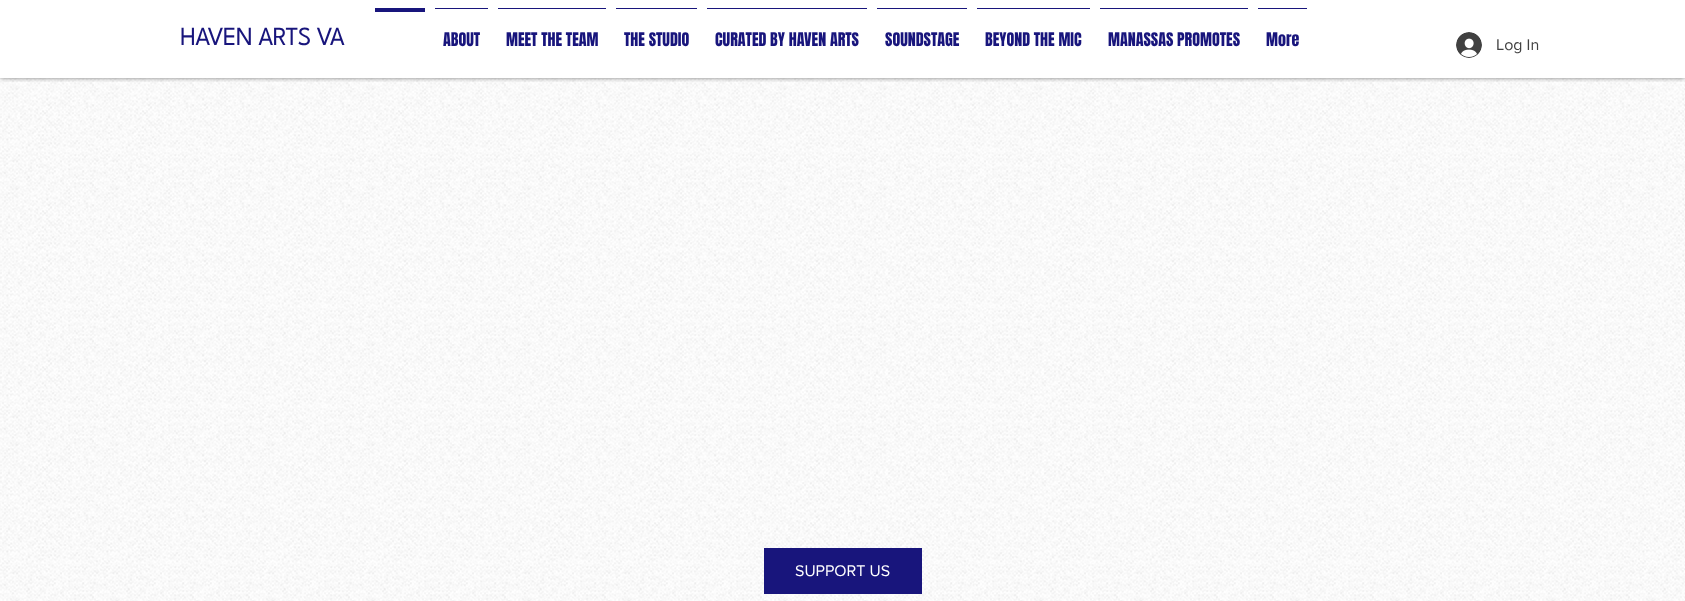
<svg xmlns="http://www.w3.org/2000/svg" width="1685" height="601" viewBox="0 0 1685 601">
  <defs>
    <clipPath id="clip1"><path d="M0 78h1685v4H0z"/></clipPath>
  </defs>
  <rect width="100%" height="100%" fill="#fff"/>
  <g clip-path="url(#clip1)">
    <path d="M0 0h1685v78H0z" fill="#00000080" filter="blur(2.5px)"/>
  </g>
  <path d="M375 8h50v4H375z" fill="#18157c"/>
  <path d="M435 8h53v1H435z" fill="#18157c"/>
  <path d="M498 8h108v1H498z" fill="#18157c"/>
  <path d="M616 8h81v1H616z" fill="#18157c"/>
  <path d="M707 8h160v1H707z" fill="#18157c"/>
  <path d="M877 8h90v1H877z" fill="#18157c"/>
  <path d="M977 8h113v1H977z" fill="#18157c"/>
  <path d="M1100 8h148v1H1100z" fill="#18157c"/>
  <path d="M1258 8h49v1H1258z" fill="#18157c"/>
  <image x="1456" y="32" width="26" height="26" href="img/1.png"/>
  <image x="0" y="78" width="1685" height="523" href="img/2.png"/>
  <path d="M764 548h158v46H764z" fill="#18157c"/>
  <text x="180" y="45" font-family="League Spartan" font-size="25" font-weight="bold" fill="#18157c">HAVEN ARTS VA</text>
  <g font-family="Anton" font-size="16" fill="#18157c">
    <text x="443" y="46">ABOUT</text>
    <text x="506" y="46">MEET THE TEAM</text>
    <text x="624" y="46">THE STUDIO</text>
    <text x="715" y="46">CURATED BY HAVEN ARTS</text>
    <text x="885" y="46">SOUNDSTAGE</text>
    <text x="985" y="46">BEYOND THE MIC</text>
    <text x="1108" y="46">MANASSAS PROMOTES</text>
    <text x="1266" y="46">More</text>
  </g>
  <text x="1496" y="50" font-family="'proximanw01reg'" font-size="16" fill="#414141">Log In</text>
  <text x="795" y="576" font-family="'proximanw01reg'" font-size="16" fill="#fff">SUPPORT US</text>
</svg>
